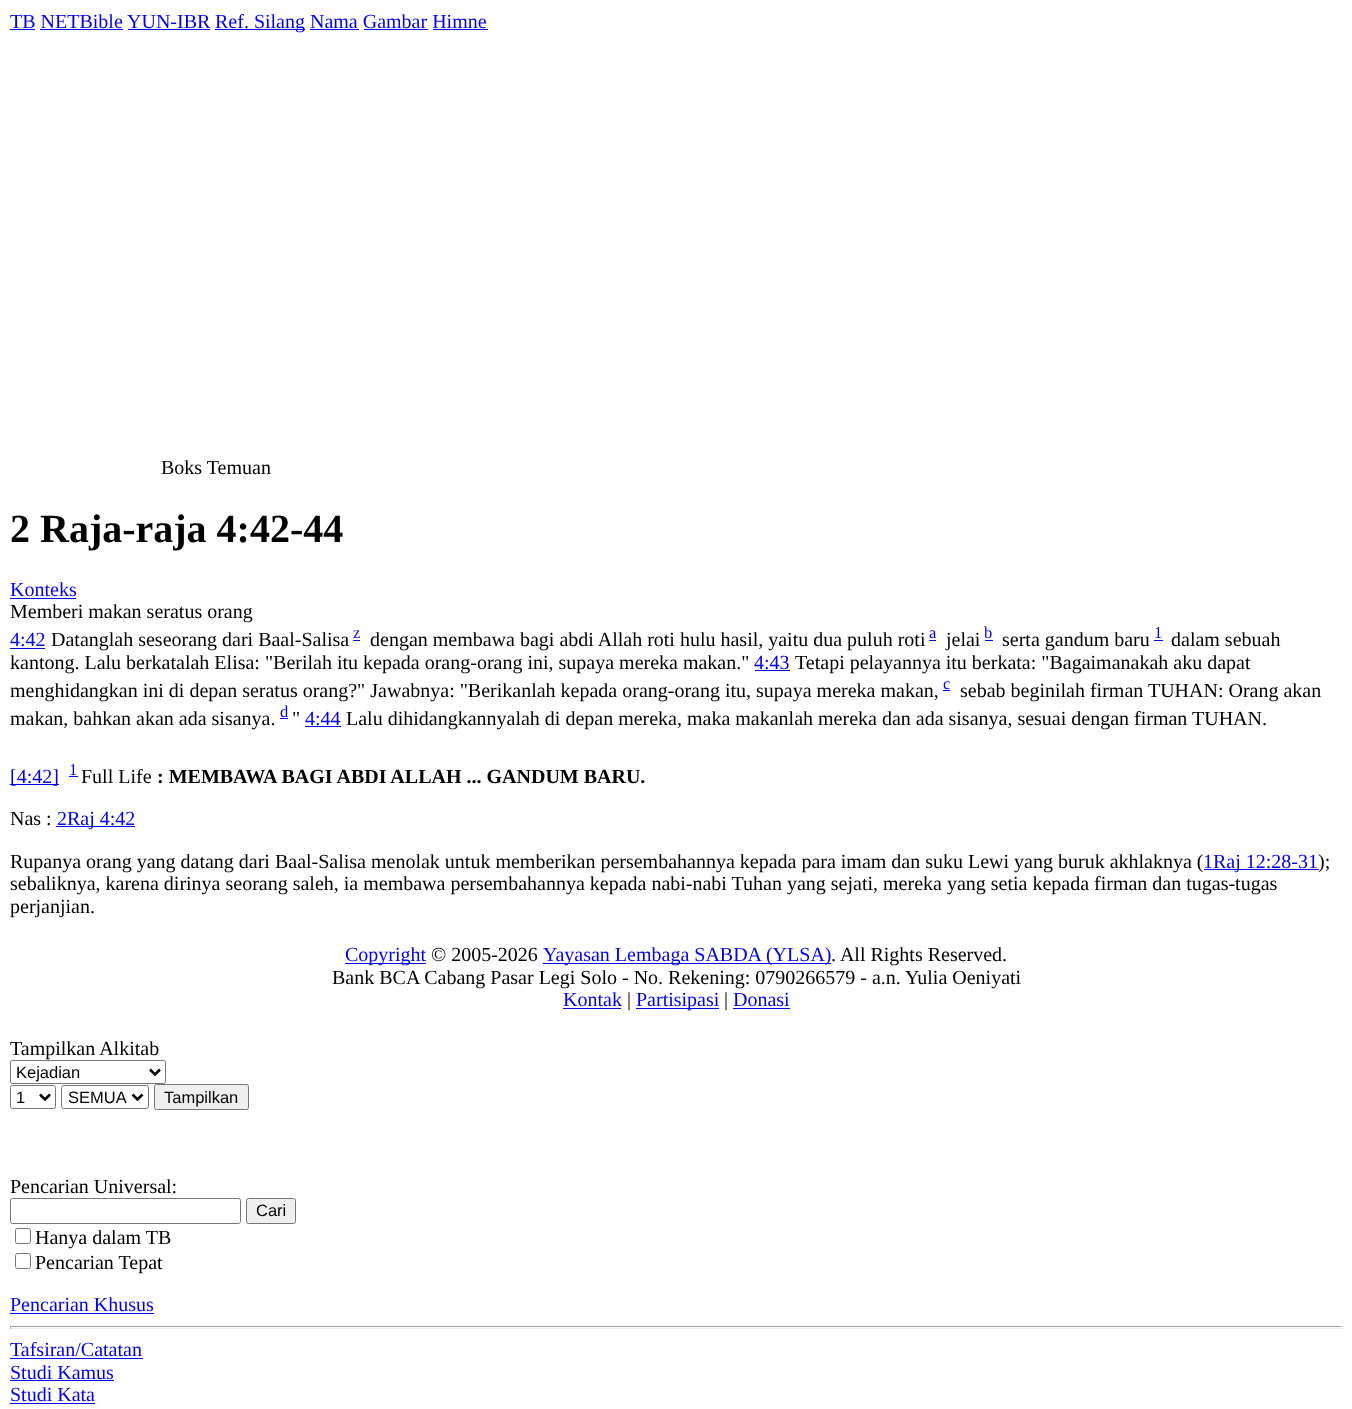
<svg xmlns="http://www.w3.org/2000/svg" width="1352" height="1409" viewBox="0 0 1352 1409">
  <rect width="100%" height="100%" fill="#fff"/>
  <path d="M10 29h25v1H10z" fill="#00e"/>
  <path d="M128 29h82v1H128z" fill="#00e"/>
  <path d="M215 29h90v1H215z" fill="#00e"/>
  <path d="M40 29h83v1H40z" fill="#00e"/>
  <path d="M310 29h49v1H310z" fill="#00e"/>
  <path d="M364 29h64v1H364z" fill="#00e"/>
  <path d="M433 29h55v1H433z" fill="#00e"/>
  <path d="M10 598h66v1H10z" fill="#00e"/>
  <path d="M10 648h35v1H10z" fill="#00e"/>
  <path d="M353 640h7v1H353z" fill="#00e"/>
  <path d="M929 640h7v1H929z" fill="#00e"/>
  <path d="M985 640h8v1H985z" fill="#00e"/>
  <path d="M1154 640h9v1H1154z" fill="#00e"/>
  <path d="M755 670h35v1H755z" fill="#00e"/>
  <path d="M943 690h7v1H943z" fill="#00e"/>
  <path d="M280 718h8v1H280z" fill="#00e"/>
  <path d="M305 726h36v1H305z" fill="#00e"/>
  <path d="M10 784h49v1H10z" fill="#00e"/>
  <path d="M69 776h9v1H69z" fill="#00e"/>
  <path d="M56 826h79v1H56z" fill="#00e"/>
  <path d="M1204 869h115v1H1204z" fill="#00e"/>
  <path d="M345 963h81v1H345z" fill="#00e"/>
  <path d="M543 963h288v1H543z" fill="#00e"/>
  <path d="M563 1008h58v1H563z" fill="#00e"/>
  <path d="M636 1008h83v1H636z" fill="#00e"/>
  <path d="M733 1008h57v1H733z" fill="#00e"/>
  <rect x="10.5" y="1060.5" width="155" height="23" rx="2" fill="none" stroke="#767676"/>
  <path d="M150 1069.5L155 1074.5L160 1069.5" fill="none" stroke="#000" stroke-width="2.5"/>
  <rect x="10.5" y="1085.5" width="45" height="23" rx="2" fill="none" stroke="#767676"/>
  <path d="M40 1094.5L45 1099.5L50 1094.5" fill="none" stroke="#000" stroke-width="2.5"/>
  <rect x="61.5" y="1085.5" width="87" height="23" rx="2" fill="none" stroke="#767676"/>
  <path d="M132.5 1094.5L137.5 1099.5L142.5 1094.5" fill="none" stroke="#000" stroke-width="2.5"/>
  <rect x="154.5" y="1084.5" width="94" height="25" rx="2" fill="#efefef" stroke="#767676"/>
  <rect x="10.5" y="1198.5" width="230" height="25" rx="2" fill="none" stroke="#767676"/>
  <rect x="246.5" y="1198.5" width="49" height="25" rx="2" fill="#efefef" stroke="#767676"/>
  <rect x="15.5" y="1228.5" width="15" height="15" rx="2" fill="none" stroke="#767676"/>
  <rect x="15.5" y="1253.5" width="15" height="15" rx="2" fill="none" stroke="#767676"/>
  <path d="M10 1313h144v1H10z" fill="#00e"/>
  <path d="M10 1326h1333v1H10z" fill="#9f9f9f"/>
  <path d="M1341 1326h1v3H1341z" fill="#eee"/>
  <path d="M10 1328h1333v1H10z" fill="#eee"/>
  <path d="M10 1326h1v3H10z" fill="#9f9f9f"/>
  <path d="M10 1358h133v1H10z" fill="#00e"/>
  <path d="M10 1380h104v1H10z" fill="#00e"/>
  <path d="M10 1403h85v1H10z" fill="#00e"/>
  <g font-family="Liberation Serif" font-size="20" fill="#00e">
    <text x="10" y="28">TB NETBible</text>
    <text x="127" y="28">YUN-IBR</text>
    <text x="215" y="28">Ref. Silang Nama Gambar Himne</text>
  </g>
  <text x="161" y="474" font-family="Liberation Serif" font-size="20" fill="#000">Boks Temuan</text>
  <text x="10" y="542" font-family="Liberation Serif" font-size="40" font-weight="bold" fill="#000">2 Raja-raja 4:42-44</text>
  <text x="10" y="596" font-family="Liberation Serif" font-size="20" fill="#00e">Konteks</text>
  <text x="10" y="618" font-family="Liberation Serif" font-size="20" fill="#000">Memberi makan seratus orang</text>
  <text x="10" y="646" font-family="Liberation Serif" font-size="20" fill="#00e">4:42</text>
  <text x="51" y="646" font-family="Liberation Serif" font-size="20" fill="#000">Datanglah seseorang dari Baal-Salisa</text>
  <text x="353" y="638" font-family="Liberation Serif" font-size="16.5" fill="#00e">z</text>
  <text x="370" y="646" font-family="Liberation Serif" font-size="20" fill="#000">dengan membawa bagi abdi Allah roti hulu hasil, yaitu dua puluh roti</text>
  <text x="929" y="638" font-family="Liberation Serif" font-size="16.5" fill="#00e">a</text>
  <text x="946" y="646" font-family="Liberation Serif" font-size="20" fill="#000">jelai</text>
  <text x="984" y="638" font-family="Liberation Serif" font-size="16.5" fill="#00e">b</text>
  <text x="1002" y="646" font-family="Liberation Serif" font-size="20" fill="#000">serta gandum baru</text>
  <text x="1154" y="638" font-family="Liberation Serif" font-size="16.5" fill="#00e">1</text>
  <g font-family="Liberation Serif" font-size="20" fill="#000">
    <text x="1171" y="646">dalam sebuah</text>
    <text x="10" y="669">kantong. Lalu berkatalah Elisa: "Berilah itu kepada orang-orang ini, supaya mereka makan."</text>
  </g>
  <text x="754" y="669" font-family="Liberation Serif" font-size="20" fill="#00e">4:43</text>
  <g font-family="Liberation Serif" font-size="20" fill="#000">
    <text x="795" y="669">Tetapi pelayannya itu berkata: "Bagaimanakah aku dapat</text>
    <text x="10" y="697">menghidangkan ini di depan seratus orang?" Jawabnya: "Berikanlah kepada orang-orang itu, supaya mereka makan,</text>
  </g>
  <text x="943" y="689" font-family="Liberation Serif" font-size="16.5" fill="#00e">c</text>
  <g font-family="Liberation Serif" font-size="20" fill="#000">
    <text x="960" y="697">sebab beginilah firman TUHAN: Orang akan</text>
    <text x="10" y="725">makan, bahkan akan ada sisanya.</text>
  </g>
  <text x="280" y="717" font-family="Liberation Serif" font-size="16.5" fill="#00e">d</text>
  <text x="292" y="725" font-family="Liberation Serif" font-size="20" fill="#000">"</text>
  <text x="305" y="725" font-family="Liberation Serif" font-size="20" fill="#00e">4:44</text>
  <text x="346" y="725" font-family="Liberation Serif" font-size="20" fill="#000">Lalu dihidangkannyalah di depan mereka, maka makanlah mereka dan ada sisanya, sesuai dengan firman TUHAN.</text>
  <text x="10" y="783" font-family="Liberation Serif" font-size="20" fill="#00e">[4:42]</text>
  <text x="69" y="775" font-family="Liberation Serif" font-size="16.5" fill="#00e">1</text>
  <text x="81" y="783" font-family="Liberation Serif" font-size="20" fill="#000">Full Life</text>
  <text x="157" y="783" font-family="Liberation Serif" font-size="20" font-weight="bold" fill="#000">: MEMBAWA BAGI ABDI ALLAH ... GANDUM BARU.</text>
  <text x="10" y="825" font-family="Liberation Serif" font-size="20" fill="#000">Nas :</text>
  <text x="57" y="825" font-family="Liberation Serif" font-size="20" fill="#00e">2Raj 4:42</text>
  <text x="10" y="868" font-family="Liberation Serif" font-size="20" fill="#000">Rupanya orang yang datang dari Baal-Salisa menolak untuk memberikan persembahannya kepada para imam dan suku Lewi yang buruk akhlaknya (</text>
  <text x="1203" y="868" font-family="Liberation Serif" font-size="20" fill="#00e">1Raj 12:28-31</text>
  <g font-family="Liberation Serif" font-size="20" fill="#000">
    <text x="1318" y="868">);</text>
    <text x="10" y="890">sebaliknya, karena dirinya seorang saleh, ia membawa persembahannya kepada nabi-nabi Tuhan yang sejati, mereka yang setia kepada firman dan tugas-tugas</text>
    <text x="10" y="913">perjanjian.</text>
  </g>
  <text x="345" y="961" font-family="Liberation Serif" font-size="20" fill="#00e">Copyright</text>
  <text x="431" y="961" font-family="Liberation Serif" font-size="20" fill="#000">© 2005-2026</text>
  <text x="543" y="961" font-family="Liberation Serif" font-size="20" fill="#00e">Yayasan Lembaga SABDA (YLSA)</text>
  <g font-family="Liberation Serif" font-size="20" fill="#000">
    <text x="831" y="961">. All Rights Reserved.</text>
    <text x="332" y="984">Bank BCA Cabang Pasar Legi Solo - No. Rekening: 0790266579 - a.n. Yulia Oeniyati</text>
  </g>
  <text x="563" y="1006" font-family="Liberation Serif" font-size="20" fill="#00e">Kontak</text>
  <text x="627" y="1006" font-family="Liberation Serif" font-size="20" fill="#000">|</text>
  <text x="636" y="1006" font-family="Liberation Serif" font-size="20" fill="#00e">Partisipasi</text>
  <text x="724" y="1006" font-family="Liberation Serif" font-size="20" fill="#000">|</text>
  <text x="733" y="1006" font-family="Liberation Serif" font-size="20" fill="#00e">Donasi</text>
  <text x="10" y="1055" font-family="Liberation Serif" font-size="20" fill="#000">Tampilkan Alkitab</text>
  <g font-family="Liberation Sans" font-size="16.5" fill="#000">
    <text x="16" y="1078">Kejadian</text>
    <text x="16" y="1103">1</text>
    <text x="68" y="1103">SEMUA</text>
    <text x="164" y="1103">Tampilkan</text>
  </g>
  <text x="10" y="1193" font-family="Liberation Serif" font-size="20" fill="#000">Pencarian Universal:</text>
  <text x="256" y="1216" font-family="Liberation Sans" font-size="16.5" fill="#000">Cari</text>
  <g font-family="Liberation Serif" font-size="20" fill="#000">
    <text x="35" y="1244">Hanya dalam TB</text>
    <text x="35" y="1269">Pencarian Tepat</text>
  </g>
  <g font-family="Liberation Serif" font-size="20" fill="#00e">
    <text x="10" y="1311">Pencarian Khusus</text>
    <text x="10" y="1356">Tafsiran/Catatan</text>
    <text x="10" y="1379">Studi Kamus</text>
    <text x="10" y="1401">Studi Kata</text>
  </g>
</svg>
